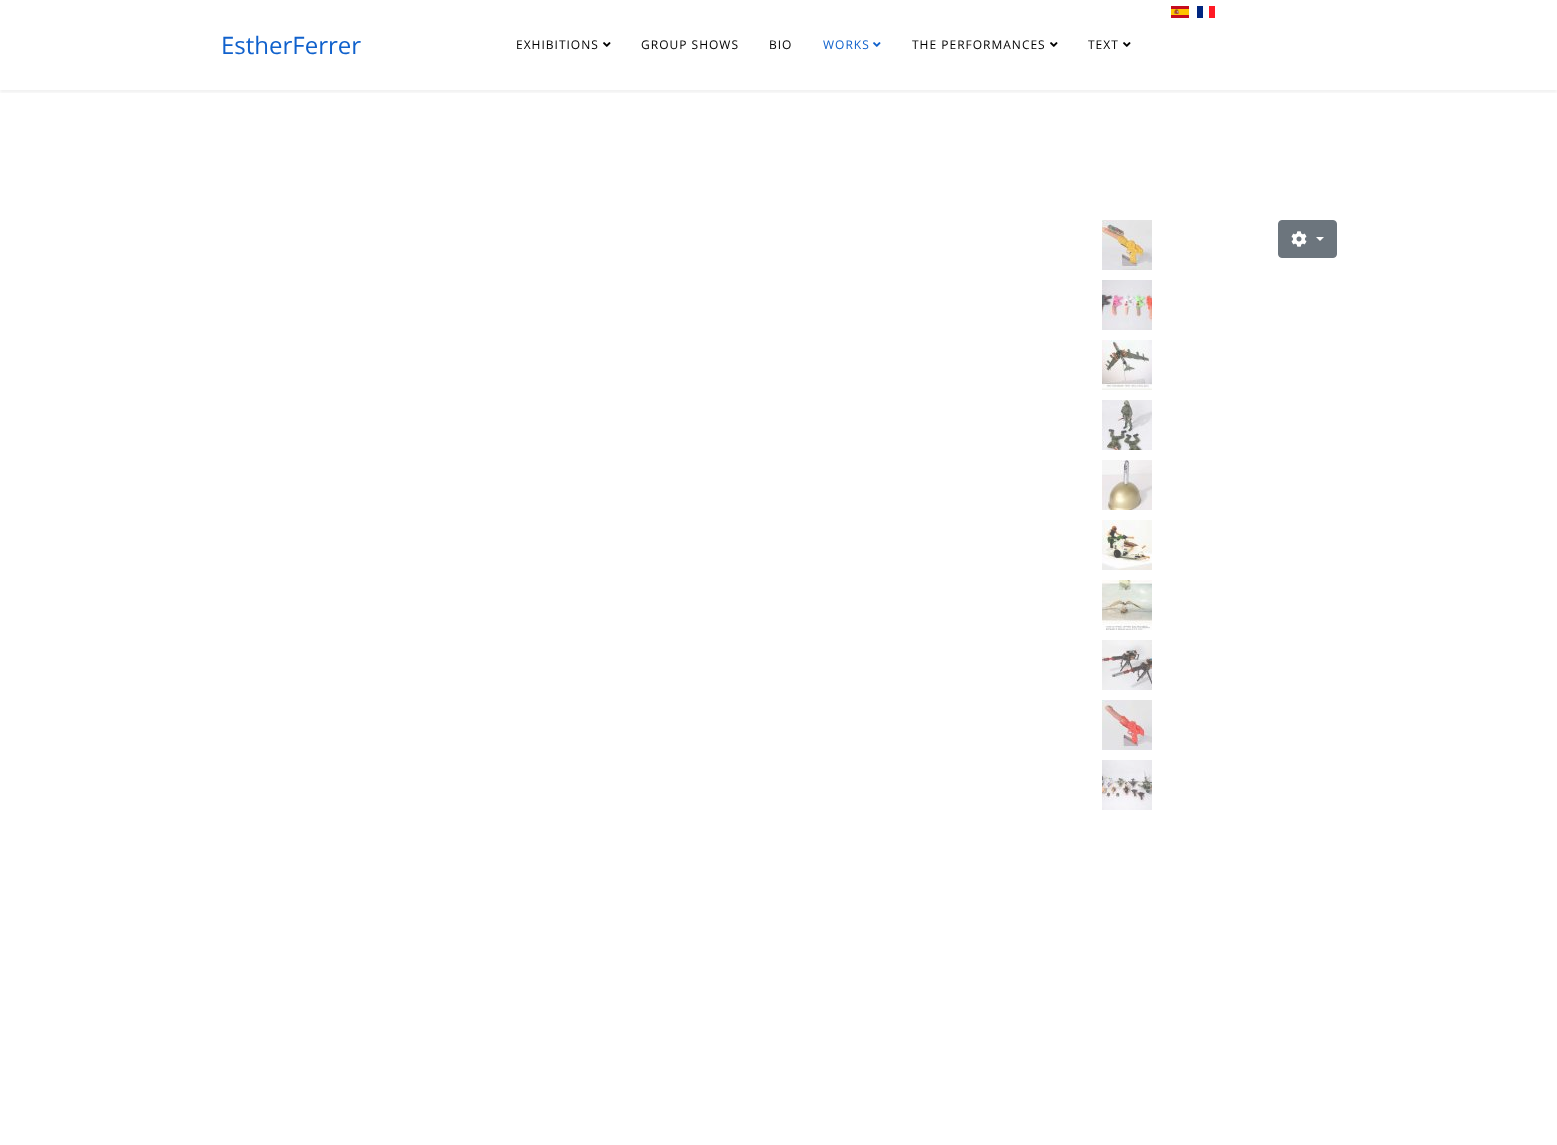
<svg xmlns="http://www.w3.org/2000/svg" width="1557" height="1145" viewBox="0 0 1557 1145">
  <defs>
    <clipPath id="clip1"><path d="M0 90h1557v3H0z"/></clipPath>
  </defs>
  <rect width="100%" height="100%" fill="#fff"/>
  <g clip-path="url(#clip1)">
    <path d="M0 3h1557v90H0z" fill="#0000000d" filter="blur(1.5px)"/>
  </g>
  <image x="1171" y="6" width="18" height="12" href="img/1.png"/>
  <image x="1197" y="6" width="18" height="12" href="img/2.png"/>
  <image x="603" y="42" width="8" height="5" href="img/3.png"/>
  <image x="873" y="42" width="8" height="5" href="img/4.png"/>
  <image x="1050" y="42" width="8" height="5" href="img/3.png"/>
  <image x="1123" y="42" width="8" height="5" href="img/3.png"/>
  <image x="1102" y="220" width="50" height="50" href="img/5.png"/>
  <image x="1102" y="280" width="50" height="50" href="img/6.png"/>
  <image x="1102" y="340" width="50" height="50" href="img/7.png"/>
  <image x="1102" y="400" width="50" height="50" href="img/8.png"/>
  <image x="1102" y="460" width="50" height="50" href="img/9.png"/>
  <image x="1102" y="520" width="50" height="50" href="img/10.png"/>
  <image x="1102" y="580" width="50" height="50" href="img/11.png"/>
  <image x="1102" y="640" width="50" height="50" href="img/12.png"/>
  <image x="1102" y="700" width="50" height="50" href="img/13.png"/>
  <image x="1102" y="760" width="50" height="50" href="img/14.png"/>
  <rect x="1278.5" y="220.5" width="58" height="37" rx="3.5" fill="#6c757d" stroke="#6c757d"/>
  <image x="1291" y="231" width="16" height="16" href="img/15.png"/>
  <path d="M1316 237H1324L1320 241Z" fill="#fff"/>
  <text x="221" y="54" font-family="Open Sans" font-size="24" fill="#1061cc">EstherFerrer</text>
  <g font-family="Open Sans" font-size="12" letter-spacing="1" fill="#000">
    <text x="516" y="49">EXHIBITIONS</text>
    <text x="641" y="49">GROUP SHOWS</text>
    <text x="769" y="49">BIO</text>
  </g>
  <text x="823" y="49" font-family="Open Sans" font-size="12" letter-spacing="1" fill="#1061cc">WORKS</text>
  <g font-family="Open Sans" font-size="12" letter-spacing="1" fill="#000">
    <text x="912" y="49">THE PERFORMANCES</text>
    <text x="1088" y="49">TEXT</text>
  </g>
</svg>
